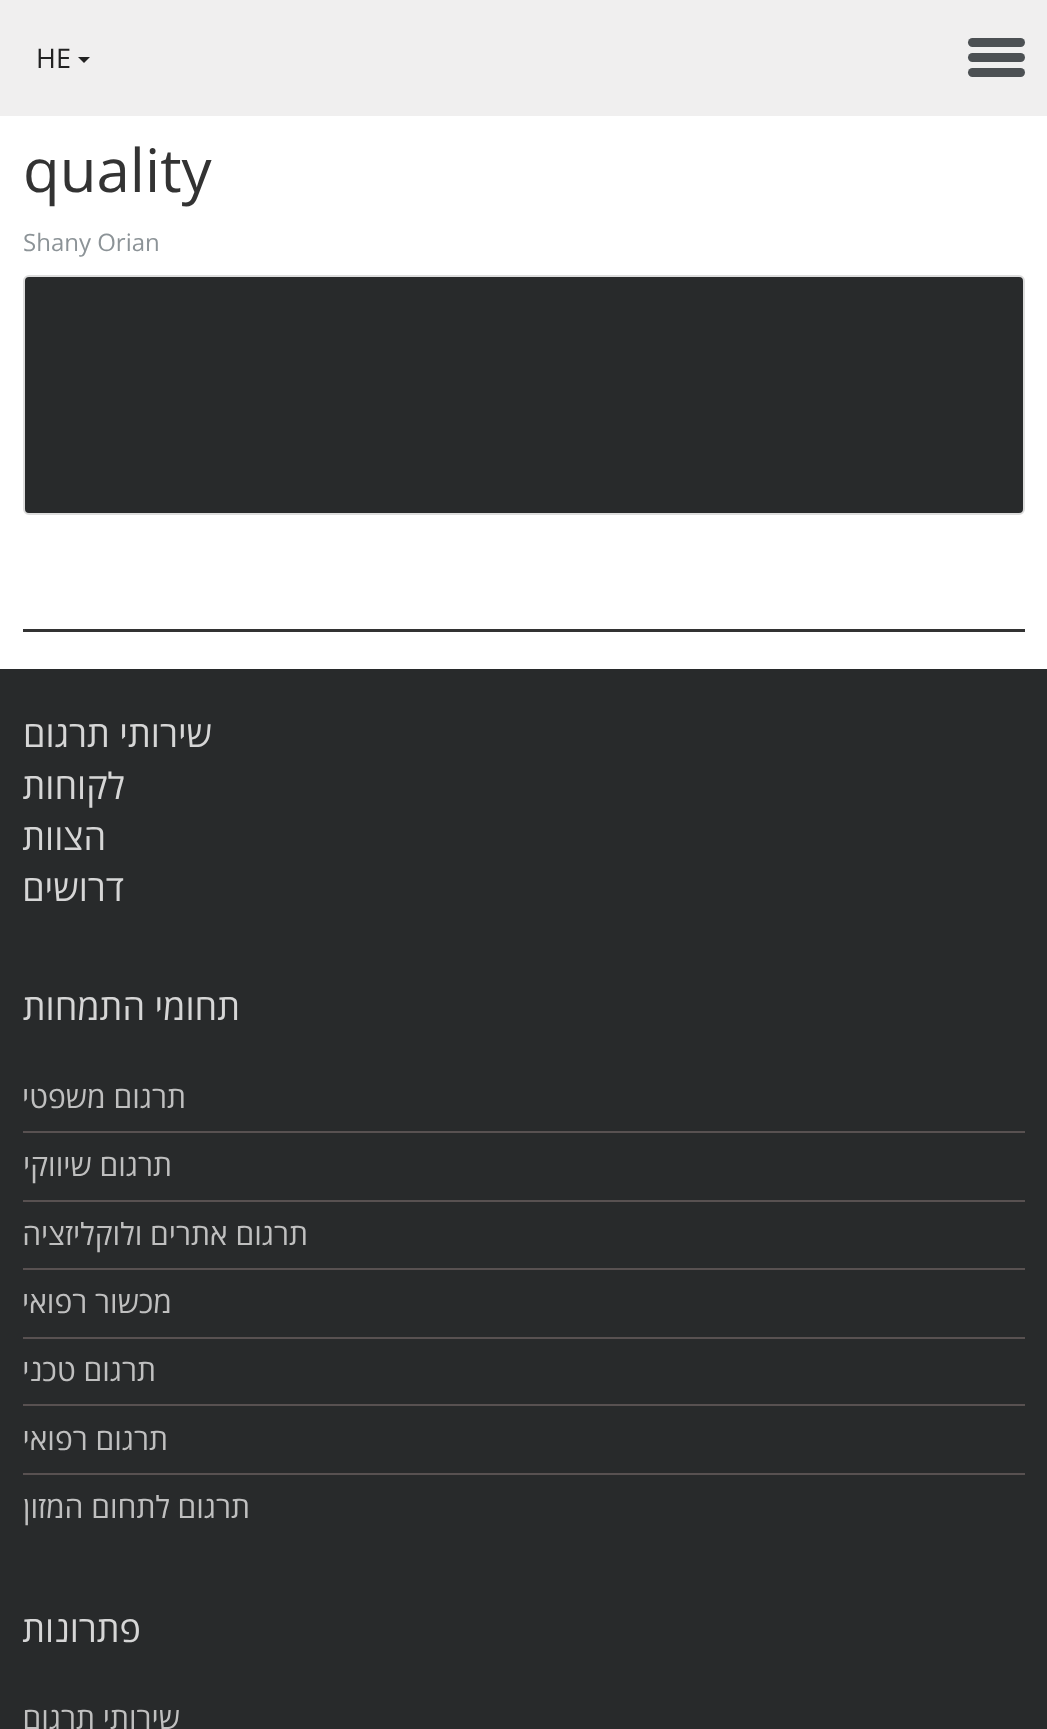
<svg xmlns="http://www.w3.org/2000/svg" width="1047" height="1729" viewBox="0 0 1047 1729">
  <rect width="100%" height="100%" fill="#282a2b"/>
  <path d="M0 0h1047v116H0z" fill="#f0efef"/>
  <rect x="968" y="38" width="57" height="9" rx="4.5" fill="#4c5053"/>
  <rect x="968" y="53" width="57" height="9" rx="4.5" fill="#4c5053"/>
  <rect x="968" y="68" width="57" height="9" rx="4.5" fill="#4c5053"/>
  <path d="M78 57H90L84 63Z" fill="#222"/>
  <path d="M0 116h1047v553H0z" fill="#fff"/>
  <path d="M23 629h1002v3H23z" fill="#333"/>
  <rect x="24" y="276" width="1000" height="238" rx="5" fill="#282a2b" stroke="#ddd" stroke-width="2"/>
  <path d="M23 1131h1002v2H23z" fill="#585151"/>
  <path d="M23 1200h1002v2H23z" fill="#585151"/>
  <path d="M23 1268h1002v2H23z" fill="#585151"/>
  <path d="M23 1337h1002v2H23z" fill="#585151"/>
  <path d="M23 1404h1002v2H23z" fill="#585151"/>
  <path d="M23 1473h1002v2H23z" fill="#585151"/>
  <text x="36" y="68" font-family="Open Sans" font-size="27" fill="#222">HE</text>
  <text x="23" y="192" font-family="Open Sans" font-size="60" fill="#333">quality</text>
  <text x="23" y="251" font-family="Open Sans" font-size="24" fill="#8c9397">Shany Orian</text>
  <g font-family="Open Sans" font-size="36" direction="rtl" fill="#d6d6d6">
    <text x="212" y="747">שירותי תרגום</text>
    <text x="125" y="799">לקוחות</text>
    <text x="106" y="850">הצוות</text>
    <text x="124" y="901">דרושים</text>
    <text x="240" y="1020">תחומי התמחות</text>
  </g>
  <g font-family="Open Sans" font-size="30" direction="rtl" fill="#bfbfbf">
    <text x="186" y="1108">תרגום משפטי</text>
    <text x="172" y="1176">תרגום שיווקי</text>
    <text x="308" y="1245">תרגום אתרים ולוקליזציה</text>
    <text x="172" y="1313">מכשור רפואי</text>
    <text x="156" y="1381">תרגום טכני</text>
    <text x="168" y="1450">תרגום רפואי</text>
    <text x="250" y="1518">תרגום</text>
    <text x="170" y="1518">לתחום המזון</text>
  </g>
  <text x="141" y="1642" font-family="Open Sans" font-size="36" direction="rtl" fill="#d6d6d6">פתרונות</text>
  <text x="180" y="1729" font-family="Open Sans" font-size="30" direction="rtl" fill="#bfbfbf">שירותי תרגום</text>
</svg>
